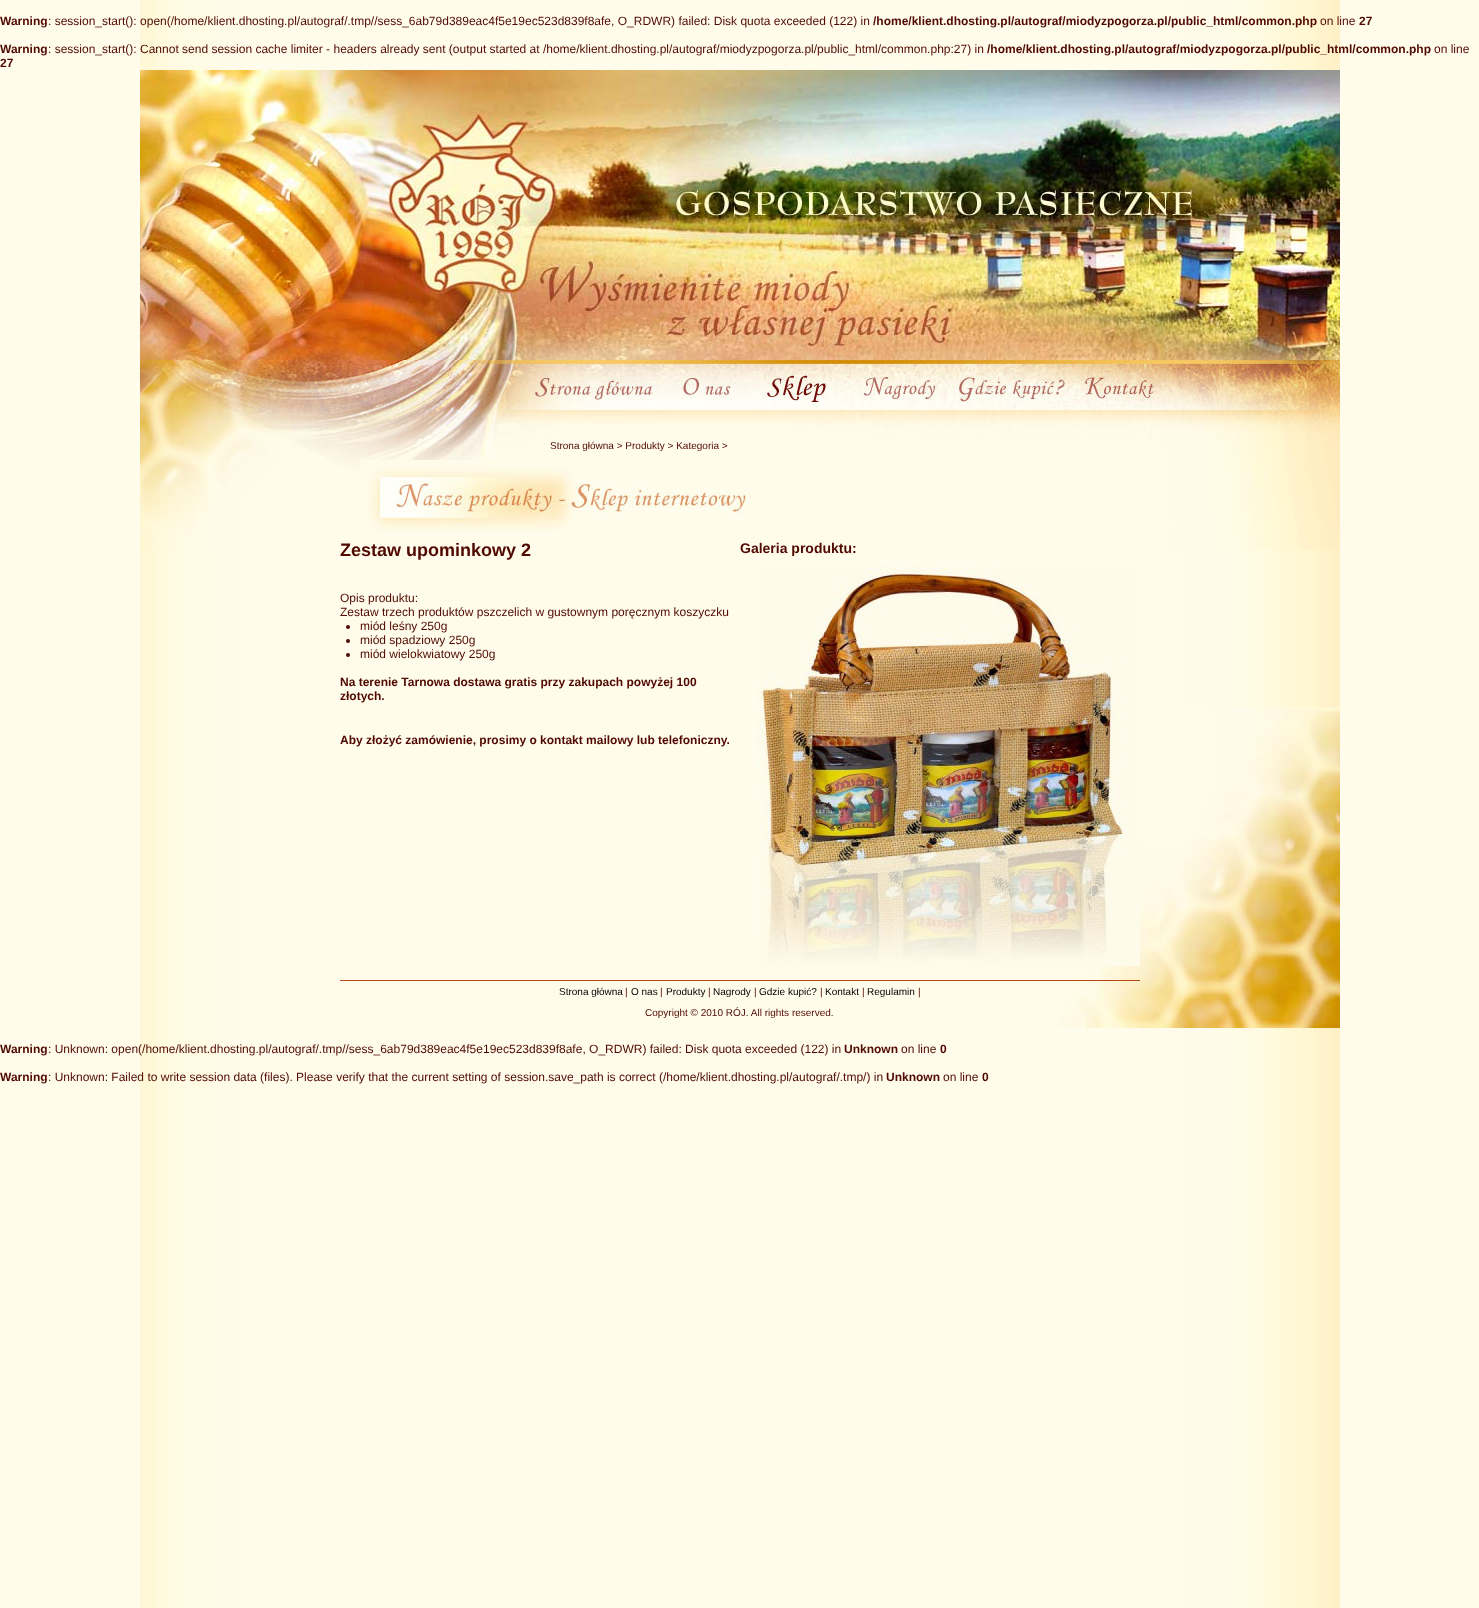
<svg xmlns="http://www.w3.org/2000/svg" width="1479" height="1608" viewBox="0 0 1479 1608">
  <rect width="100%" height="100%" fill="#fffceb"/>
  <image x="140" y="0" width="1200" height="1608" href="img/1.png"/>
  <image x="140" y="70" width="1200" height="145" href="img/2.png"/>
  <image x="140" y="215" width="1200" height="145" href="img/3.png"/>
  <image x="140" y="360" width="1200" height="50" href="img/4.png"/>
  <image x="530" y="360" width="137" height="40" href="img/5.png"/>
  <image x="676" y="376" width="56" height="24" href="img/6.png"/>
  <image x="747" y="360" width="105" height="48" href="img/7.png"/>
  <image x="860" y="362" width="91" height="38" href="img/8.png"/>
  <image x="951" y="360" width="121" height="48" href="img/9.png"/>
  <image x="1072" y="360" width="87" height="48" href="img/10.png"/>
  <image x="140" y="410" width="1200" height="140" href="img/11.png"/>
  <image x="1059" y="707" width="281" height="321" href="img/12.png"/>
  <image x="360" y="460" width="391" height="72" href="img/13.png"/>
  <circle cx="348" cy="627" r="2" fill="#500901"/>
  <circle cx="348" cy="641" r="2" fill="#500901"/>
  <circle cx="348" cy="655" r="2" fill="#500901"/>
  <image x="756" y="566" width="384" height="400" href="img/14.png"/>
  <path d="M340 980h800v1H340z" fill="#b74515"/>
  <text x="0" y="25" font-family="Liberation Sans" font-size="12" font-weight="bold" fill="#500901">Warning</text>
  <text x="48" y="25" font-family="Liberation Sans" font-size="12" fill="#500901">: session_start(): open(/home/klient.dhosting.pl/autograf/.tmp//sess_6ab79d389eac4f5e19ec523d839f8afe, O_RDWR) failed: Disk quota exceeded (122) in</text>
  <text x="873" y="25" font-family="Liberation Sans" font-size="12" font-weight="bold" fill="#500901">/home/klient.dhosting.pl/autograf/miodyzpogorza.pl/public_html/common.php</text>
  <text x="1320" y="25" font-family="Liberation Sans" font-size="12" fill="#500901">on line</text>
  <g font-family="Liberation Sans" font-size="12" font-weight="bold" fill="#500901">
    <text x="1359" y="25">27</text>
    <text x="0" y="53">Warning</text>
  </g>
  <text x="48" y="53" font-family="Liberation Sans" font-size="12" fill="#500901">: session_start(): Cannot send session cache limiter - headers already sent (output started at /home/klient.dhosting.pl/autograf/miodyzpogorza.pl/public_html/common.php:27) in</text>
  <text x="987" y="53" font-family="Liberation Sans" font-size="12" font-weight="bold" fill="#500901">/home/klient.dhosting.pl/autograf/miodyzpogorza.pl/public_html/common.php</text>
  <text x="1434" y="53" font-family="Liberation Sans" font-size="12" fill="#500901">on line</text>
  <text x="0" y="67" font-family="Liberation Sans" font-size="12" font-weight="bold" fill="#500901">27</text>
  <text x="550" y="449" font-family="Liberation Sans" font-size="10" fill="#500901">Strona główna &gt; Produkty &gt; Kategoria &gt;</text>
  <text x="340" y="556" font-family="Liberation Sans" font-size="18" font-weight="bold" fill="#500901">Zestaw upominkowy 2</text>
  <g font-family="Liberation Sans" font-size="12" fill="#500901">
    <text x="340" y="602">Opis produktu:</text>
    <text x="340" y="616">Zestaw trzech produktów pszczelich w gustownym poręcznym koszyczku</text>
    <text x="360" y="630">miód leśny 250g</text>
    <text x="360" y="644">miód spadziowy 250g</text>
    <text x="360" y="658">miód wielokwiatowy 250g</text>
  </g>
  <g font-family="Liberation Sans" font-size="12" font-weight="bold" fill="#500901">
    <text x="340" y="686">Na terenie Tarnowa dostawa gratis przy zakupach powyżej 100</text>
    <text x="340" y="700">złotych.</text>
    <text x="340" y="744">Aby złożyć zamówienie, prosimy o kontakt mailowy lub telefoniczny.</text>
  </g>
  <text x="740" y="553" font-family="Liberation Sans" font-size="14" font-weight="bold" fill="#500901">Galeria produktu:</text>
  <text x="559" y="995" font-family="Liberation Sans" font-size="10" fill="#000">Strona główna</text>
  <text x="625" y="995" font-family="Liberation Sans" font-size="10" fill="#500901">|</text>
  <text x="631" y="995" font-family="Liberation Sans" font-size="10" fill="#000">O nas</text>
  <text x="660" y="995" font-family="Liberation Sans" font-size="10" fill="#500901">|</text>
  <text x="666" y="995" font-family="Liberation Sans" font-size="10" fill="#000">Produkty</text>
  <text x="708" y="995" font-family="Liberation Sans" font-size="10" fill="#500901">|</text>
  <text x="713" y="995" font-family="Liberation Sans" font-size="10" fill="#000">Nagrody</text>
  <text x="754" y="995" font-family="Liberation Sans" font-size="10" fill="#500901">|</text>
  <text x="759" y="995" font-family="Liberation Sans" font-size="10" fill="#000">Gdzie kupić?</text>
  <text x="820" y="995" font-family="Liberation Sans" font-size="10" fill="#500901">|</text>
  <text x="825" y="995" font-family="Liberation Sans" font-size="10" fill="#000">Kontakt</text>
  <text x="862" y="995" font-family="Liberation Sans" font-size="10" fill="#500901">|</text>
  <text x="867" y="995" font-family="Liberation Sans" font-size="10" fill="#000">Regulamin</text>
  <g font-family="Liberation Sans" font-size="10" fill="#500901">
    <text x="918" y="995">|</text>
    <text x="645" y="1016">Copyright © 2010 RÓJ. All rights reserved.</text>
  </g>
  <text x="0" y="1053" font-family="Liberation Sans" font-size="12" font-weight="bold" fill="#500901">Warning</text>
  <text x="48" y="1053" font-family="Liberation Sans" font-size="12" fill="#500901">: Unknown: open(/home/klient.dhosting.pl/autograf/.tmp//sess_6ab79d389eac4f5e19ec523d839f8afe, O_RDWR) failed: Disk quota exceeded (122) in</text>
  <text x="844" y="1053" font-family="Liberation Sans" font-size="12" font-weight="bold" fill="#500901">Unknown</text>
  <text x="901" y="1053" font-family="Liberation Sans" font-size="12" fill="#500901">on line</text>
  <g font-family="Liberation Sans" font-size="12" font-weight="bold" fill="#500901">
    <text x="940" y="1053">0</text>
    <text x="0" y="1081">Warning</text>
  </g>
  <text x="48" y="1081" font-family="Liberation Sans" font-size="12" fill="#500901">: Unknown: Failed to write session data (files). Please verify that the current setting of session.save_path is correct (/home/klient.dhosting.pl/autograf/.tmp/) in</text>
  <text x="886" y="1081" font-family="Liberation Sans" font-size="12" font-weight="bold" fill="#500901">Unknown</text>
  <text x="943" y="1081" font-family="Liberation Sans" font-size="12" fill="#500901">on line</text>
  <text x="982" y="1081" font-family="Liberation Sans" font-size="12" font-weight="bold" fill="#500901">0</text>
</svg>
